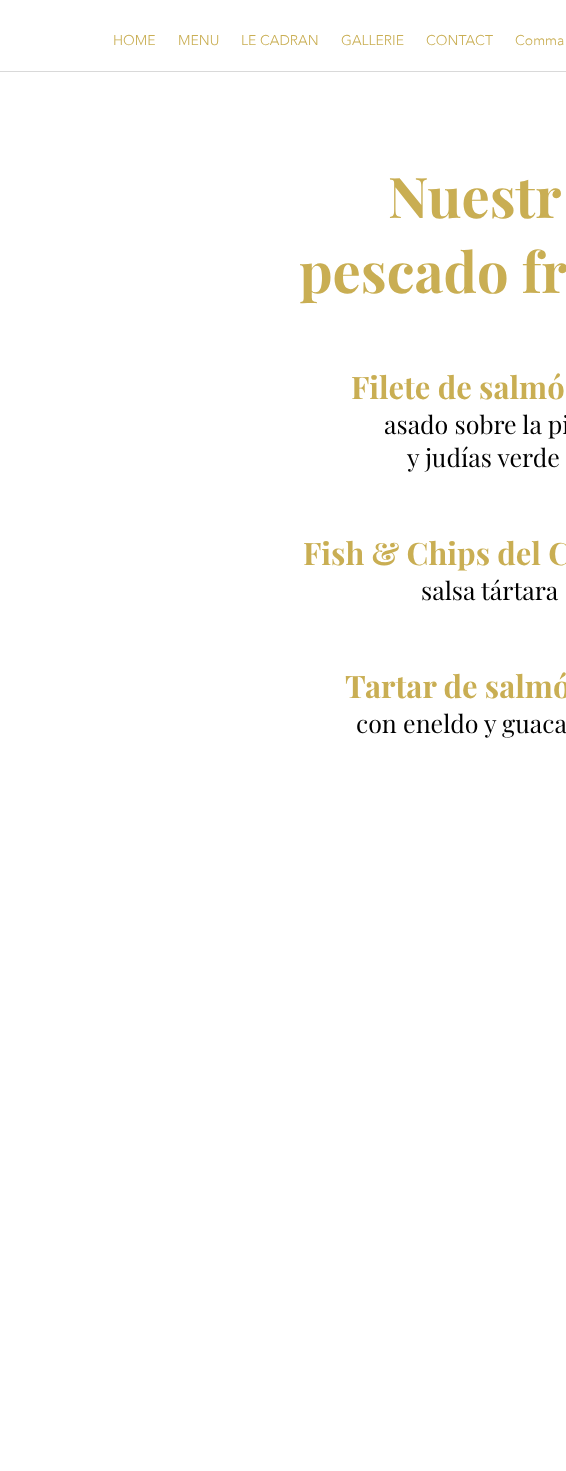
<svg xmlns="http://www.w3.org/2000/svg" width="566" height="1471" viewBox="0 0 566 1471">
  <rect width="100%" height="100%" fill="#fff"/>
  <path d="M-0.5 -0.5h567v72H-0.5z" fill="none" stroke="#d9d9d9"/>
  <g font-family="'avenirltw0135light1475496'" font-size="14" font-weight="300" fill="#c9ae53">
    <text x="113" y="45">HOME</text>
    <text x="178" y="45">MENU</text>
    <text x="241" y="45">LE CADRAN</text>
    <text x="341" y="45">GALLERIE</text>
    <text x="426" y="45">CONTACT</text>
    <text x="515" y="45">Comma</text>
  </g>
  <g font-family="Playfair Display" font-size="56" font-weight="bold" fill="#c9ae53">
    <text x="388" y="218">Nuestr</text>
    <text x="299" y="293">pescado fr</text>
  </g>
  <text x="351" y="399" font-family="Playfair Display" font-size="31" font-weight="bold" fill="#c9ae53">Filete de salmó</text>
  <g font-family="Playfair Display" font-size="25" fill="#000">
    <text x="384" y="434">asado sobre la pi</text>
    <text x="407" y="467">y judías verde</text>
  </g>
  <text x="303" y="565" font-family="Playfair Display" font-size="31" font-weight="bold" fill="#c9ae53">Fish &amp; Chips del C</text>
  <text x="421" y="600" font-family="Playfair Display" font-size="25" fill="#000">salsa tártara</text>
  <text x="345" y="698" font-family="Playfair Display" font-size="31" font-weight="bold" fill="#c9ae53">Tartar de salmó</text>
  <text x="356" y="733" font-family="Playfair Display" font-size="25" fill="#000">con eneldo y guaca</text>
</svg>
